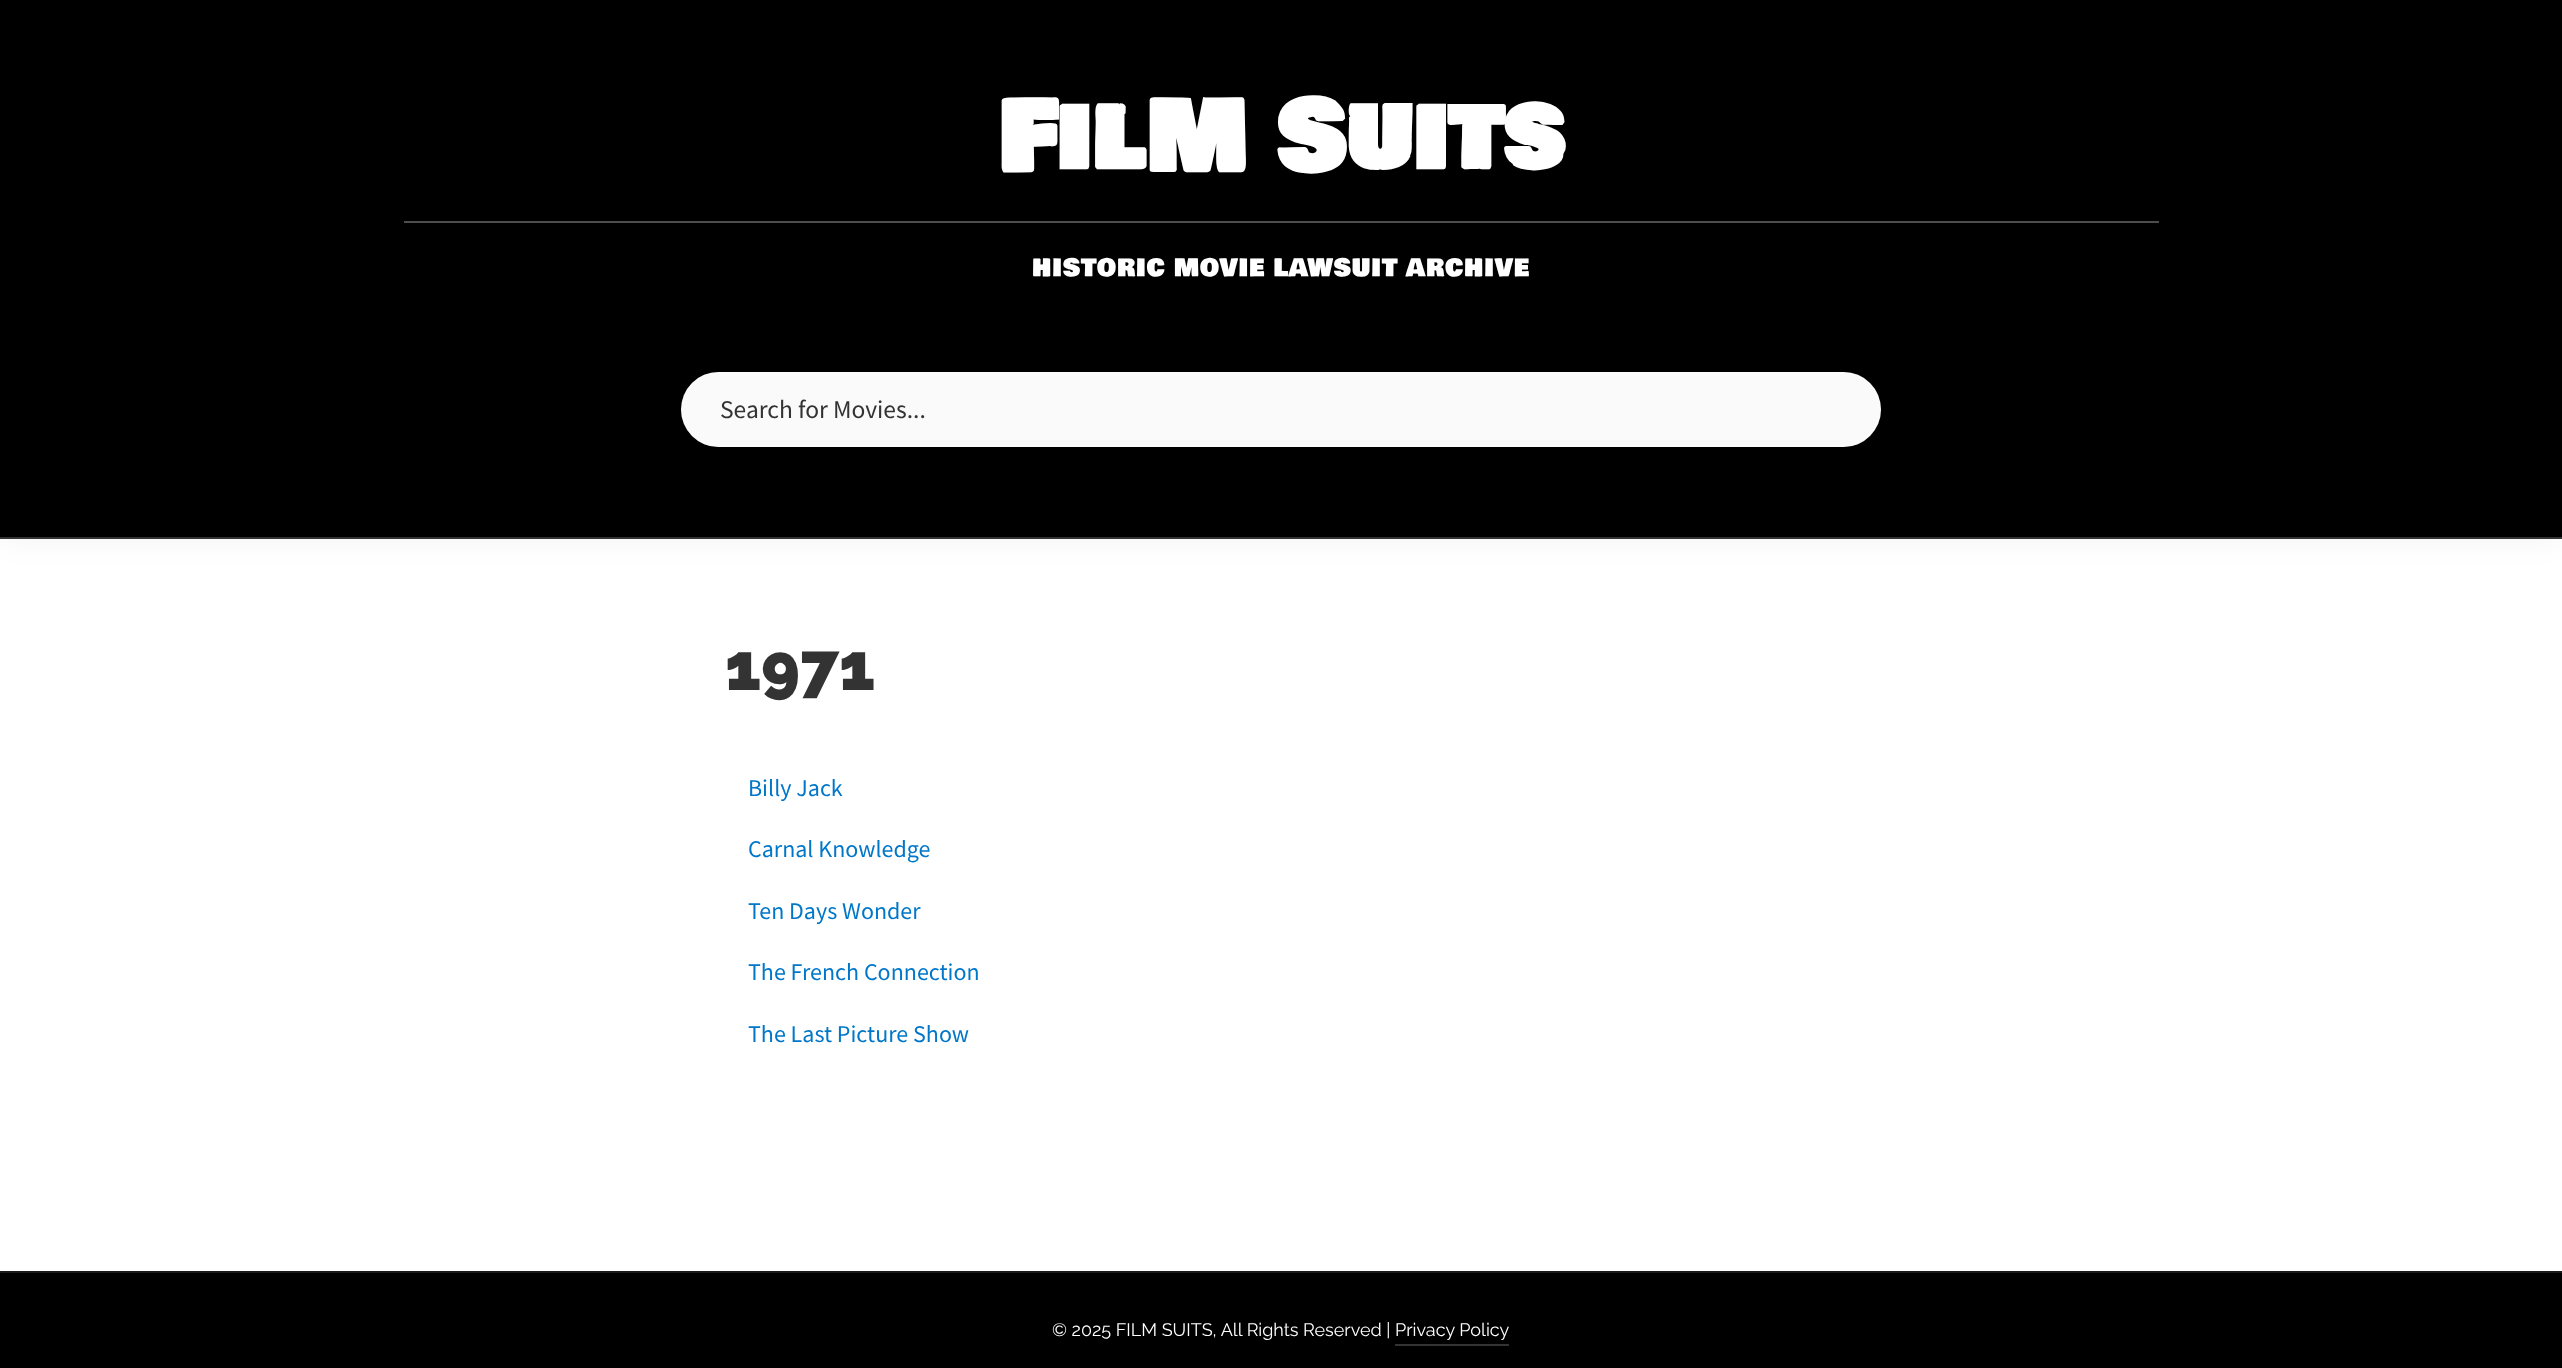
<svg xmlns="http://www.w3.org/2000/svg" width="2562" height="1368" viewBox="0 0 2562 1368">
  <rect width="100%" height="100%" fill="#fff"/>
  <path d="M0 0h2562v539H0z" fill="#0000000d" filter="blur(15px)"/>
  <path d="M0 0h2562v537H0z" fill="#000"/>
  <path d="M0 537h2562v2H0z" fill="#333"/>
  <path d="M404 221h1755v2H404z" fill="#4d4d4d"/>
  <rect x="681" y="372" width="1200" height="75" rx="37.5" fill="#fafafa"/>
  <rect x="682" y="373" width="1198" height="73" rx="36.5" fill="none" stroke="#ffffff33" stroke-width="2"/>
  <path d="M0 1273h2562v95H0z" fill="#000"/>
  <path d="M0 1271h2562v2H0z" fill="#1a1a1a"/>
  <path d="M1395 1344h114v2H1395z" fill="#333"/>
  <text x="997" y="171" font-family="Bowlby One SC" font-size="96" font-weight="bold" fill="#fff">FilM Suits</text>
  <text x="1032" y="276" font-family="Bowlby One SC" font-size="24" letter-spacing="0.75" fill="#fff">HISTORIC MOVIE LAWSUIT ARCHIVE</text>
  <text x="720" y="418" font-family="Source Sans Pro" font-size="25.5" fill="#333">Search for Movies...</text>
  <text x="725" y="690" font-family="Raleway" font-size="66" font-weight="900" fill="#333">1971</text>
  <g font-family="Source Sans Pro" font-size="24" fill="#0077c8">
    <text x="748" y="796">Billy Jack</text>
    <text x="748" y="857">Carnal Knowledge</text>
    <text x="748" y="919">Ten Days Wonder</text>
    <text x="748" y="980">The French Connection</text>
    <text x="748" y="1042">The Last Picture Show</text>
  </g>
  <text x="1052" y="1336" font-family="Raleway" font-size="18" fill="#fff">© 2025 FILM SUITS, All Rights Reserved | Privacy Policy</text>
</svg>
